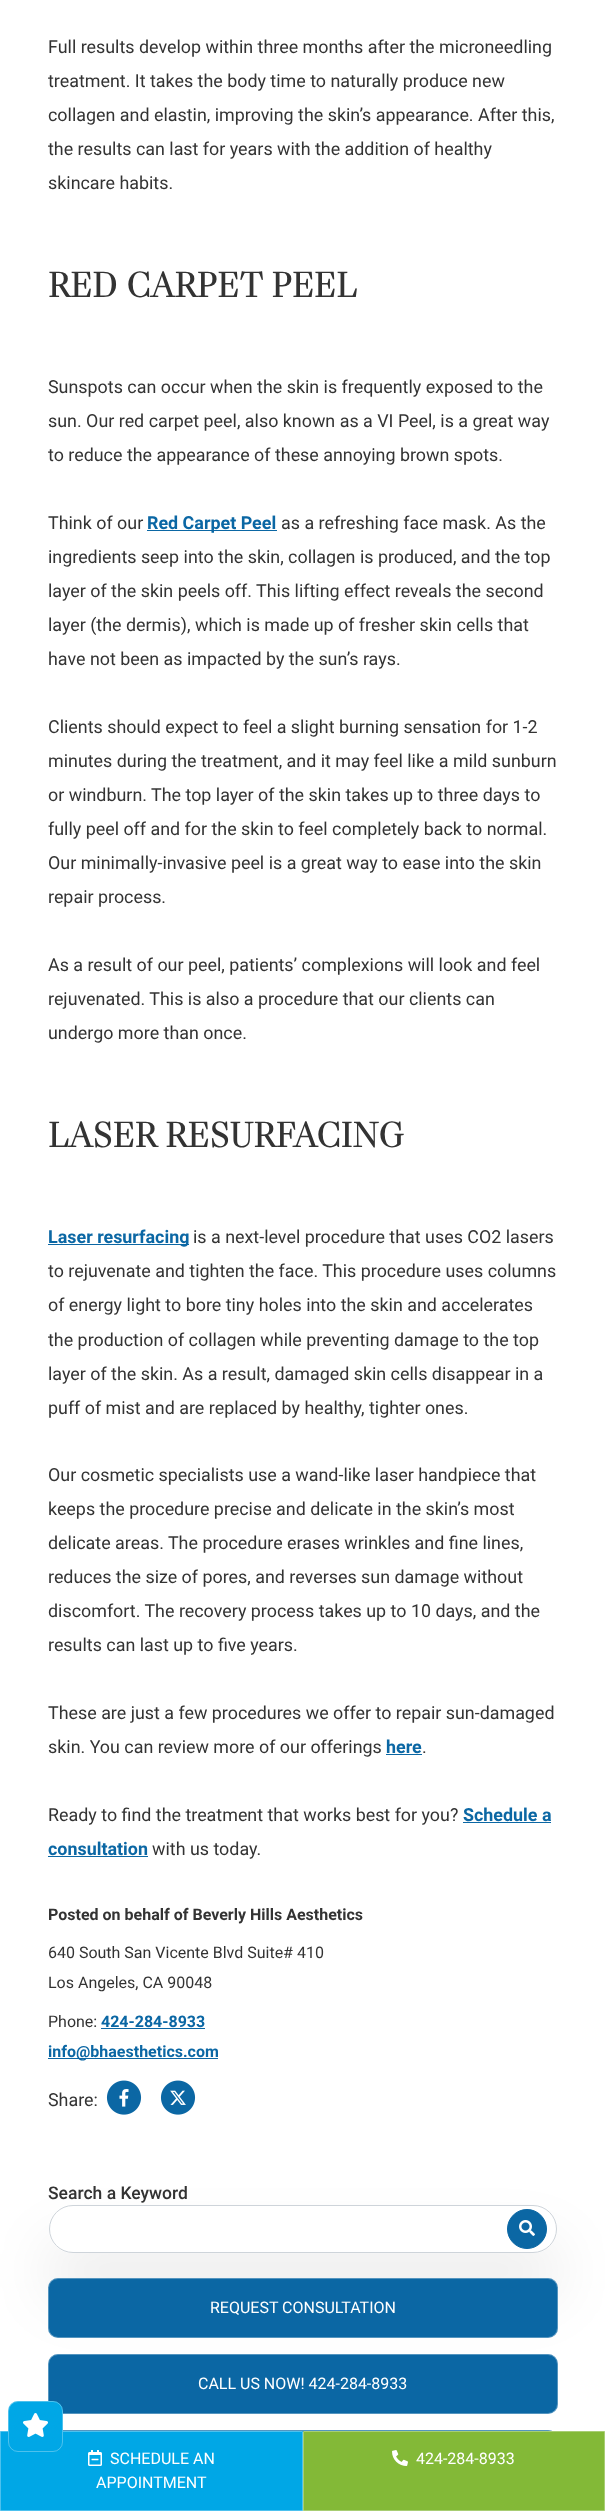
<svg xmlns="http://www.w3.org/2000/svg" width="605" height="2511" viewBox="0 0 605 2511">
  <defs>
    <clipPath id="clip1"><path d="M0 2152H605V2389H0ZM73 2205H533C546.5 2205 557 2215.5 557 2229C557 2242.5 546.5 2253 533 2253H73C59.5 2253 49 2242.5 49 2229C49 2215.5 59.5 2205 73 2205Z" clip-rule="evenodd"/></clipPath>
  </defs>
  <rect width="100%" height="100%" fill="#fff"/>
  <path d="M147 530h130v1H147z" fill="#0b67a4"/>
  <path d="M48 1244h141v1H48z" fill="#0b67a4"/>
  <path d="M386 1754h36v1H386z" fill="#0b67a4"/>
  <path d="M463 1822h88v1H463z" fill="#0b67a4"/>
  <path d="M48 1856h100v1H48z" fill="#0b67a4"/>
  <path d="M101 2028h104v1H101z" fill="#0b67a4"/>
  <path d="M48 2058h170v1H48z" fill="#0b67a4"/>
  <image x="106" y="2080" width="36" height="35" href="img/1.png"/>
  <image x="119" y="2089" width="10" height="18" href="img/2.png"/>
  <image x="160" y="2080" width="36" height="35" href="img/1.png"/>
  <image x="170" y="2090" width="16" height="15" href="img/3.png"/>
  <g clip-path="url(#clip1)">
    <rect x="43" y="2240" width="521" height="61" rx="30.5" fill="#00000012" filter="blur(29px)"/>
  </g>
  <rect x="49.5" y="2205.5" width="507" height="47" rx="23.5" fill="none" stroke="#ced4da"/>
  <circle cx="527" cy="2229" r="19.5" fill="#0b67a4" stroke="#0b67a4"/>
  <image x="519" y="2220" width="16" height="16" href="img/4.png"/>
  <rect x="48" y="2278" width="510" height="60" rx="10" fill="#0b67a4"/>
  <rect x="48.5" y="2278.5" width="509" height="59" rx="9.5" fill="none" stroke="#ffffff4d"/>
  <rect x="48" y="2354" width="510" height="60" rx="10" fill="#0b67a4"/>
  <rect x="48.5" y="2354.5" width="509" height="59" rx="9.5" fill="none" stroke="#ffffff4d"/>
  <rect x="48" y="2430" width="510" height="60" rx="10" fill="#0b67a4"/>
  <rect x="48.5" y="2430.5" width="509" height="59" rx="9.5" fill="none" stroke="#ffffff4d"/>
  <path d="M0.5 2431.5h302v79H0.5z" fill="#00a7e6" stroke="#4dc1ee"/>
  <rect x="8" y="2401" width="55" height="51" rx="10" fill="#00a7e6"/>
  <rect x="8.5" y="2401.5" width="54" height="50" rx="9.5" fill="none" stroke="#ffffff4d"/>
  <image x="23" y="2413" width="25" height="24" href="img/5.png"/>
  <image x="88" y="2450" width="14" height="16" href="img/6.png"/>
  <path d="M303.5 2431.5h301v79H303.5z" fill="#83b937" stroke="#a8ce73"/>
  <image x="392" y="2450" width="16" height="16" href="img/7.png"/>
  <g font-family="Roboto" font-size="17.9" fill="#333">
    <text x="48" y="53">Full results develop within three months after the microneedling</text>
    <text x="48" y="87">treatment. It takes the body time to naturally produce new</text>
    <text x="48" y="121">collagen and elastin, improving the skin’s appearance. After this,</text>
    <text x="48" y="155">the results can last for years with the addition of healthy</text>
    <text x="48" y="189">skincare habits.</text>
  </g>
  <text x="48" y="297" font-family="Libre Caslon Display" font-size="35.25" font-weight="bold" letter-spacing="0.5" fill="#333">RED CARPET PEEL</text>
  <g font-family="Roboto" font-size="17.9" fill="#333">
    <text x="48" y="393">Sunspots can occur when the skin is frequently exposed to the</text>
    <text x="48" y="427">sun. Our red carpet peel, also known as a VI Peel, is a great way</text>
    <text x="48" y="461">to reduce the appearance of these annoying brown spots.</text>
    <text x="48" y="529">Think of our</text>
  </g>
  <text x="147" y="529" font-family="Roboto" font-size="17.9" font-weight="bold" fill="#0b67a4">Red Carpet Peel</text>
  <g font-family="Roboto" font-size="17.9" fill="#333">
    <text x="281" y="529">as a refreshing face mask. As the</text>
    <text x="48" y="563">ingredients seep into the skin, collagen is produced, and the top</text>
    <text x="48" y="597">layer of the skin peels off. This lifting effect reveals the second</text>
    <text x="48" y="631">layer (the dermis), which is made up of fresher skin cells that</text>
    <text x="48" y="665">have not been as impacted by the sun’s rays.</text>
    <text x="48" y="733">Clients should expect to feel a slight burning sensation for 1-2</text>
    <text x="48" y="767">minutes during the treatment, and it may feel like a mild sunburn</text>
    <text x="48" y="801">or windburn. The top layer of the skin takes up to three days to</text>
    <text x="48" y="835">fully peel off and for the skin to feel completely back to normal.</text>
    <text x="48" y="869">Our minimally-invasive peel is a great way to ease into the skin</text>
    <text x="48" y="903">repair process.</text>
    <text x="48" y="971">As a result of our peel, patients’ complexions will look and feel</text>
    <text x="48" y="1005">rejuvenated. This is also a procedure that our clients can</text>
    <text x="48" y="1039">undergo more than once.</text>
  </g>
  <text x="48" y="1147" font-family="Libre Caslon Display" font-size="35.25" font-weight="bold" letter-spacing="0.5" fill="#333">LASER RESURFACING</text>
  <text x="48" y="1243" font-family="Roboto" font-size="17.9" font-weight="bold" fill="#0b67a4">Laser resurfacing</text>
  <g font-family="Roboto" font-size="17.9" fill="#333">
    <text x="193" y="1243">is a next-level procedure that uses CO2 lasers</text>
    <text x="48" y="1277">to rejuvenate and tighten the face. This procedure uses columns</text>
    <text x="48" y="1311">of energy light to bore tiny holes into the skin and accelerates</text>
    <text x="48" y="1346">the production of collagen while preventing damage to the top</text>
    <text x="48" y="1380">layer of the skin. As a result, damaged skin cells disappear in a</text>
    <text x="48" y="1414">puff of mist and are replaced by healthy, tighter ones.</text>
    <text x="48" y="1481">Our cosmetic specialists use a wand-like laser handpiece that</text>
    <text x="48" y="1515">keeps the procedure precise and delicate in the skin’s most</text>
    <text x="48" y="1549">delicate areas. The procedure erases wrinkles and fine lines,</text>
    <text x="48" y="1583">reduces the size of pores, and reverses sun damage without</text>
    <text x="48" y="1617">discomfort. The recovery process takes up to 10 days, and the</text>
    <text x="48" y="1651">results can last up to five years.</text>
    <text x="48" y="1719">These are just a few procedures we offer to repair sun-damaged</text>
    <text x="48" y="1753">skin. You can review more of our offerings</text>
  </g>
  <text x="386" y="1753" font-family="Roboto" font-size="17.9" font-weight="bold" fill="#0b67a4">here</text>
  <g font-family="Roboto" font-size="17.9" fill="#333">
    <text x="422" y="1753">.</text>
    <text x="48" y="1821">Ready to find the treatment that works best for you?</text>
  </g>
  <g font-family="Roboto" font-size="17.9" font-weight="bold" fill="#0b67a4">
    <text x="463" y="1821">Schedule a</text>
    <text x="48" y="1855">consultation</text>
  </g>
  <text x="152" y="1855" font-family="Roboto" font-size="17.9" fill="#333">with us today.</text>
  <text x="48" y="1920" font-family="Roboto" font-size="16" font-weight="bold" fill="#333">Posted on behalf of Beverly Hills Aesthetics</text>
  <g font-family="Roboto" font-size="16" fill="#333">
    <text x="48" y="1958">640 South San Vicente Blvd Suite# 410</text>
    <text x="48" y="1988">Los Angeles, CA 90048</text>
    <text x="48" y="2027">Phone:</text>
  </g>
  <g font-family="Roboto" font-size="16" font-weight="bold" fill="#0b67a4">
    <text x="101" y="2027">424-284-8933</text>
    <text x="48" y="2057">info@bhaesthetics.com</text>
  </g>
  <text x="48" y="2106" font-family="Roboto" font-size="17.9" fill="#333">Share:</text>
  <text x="48" y="2199" font-family="Roboto" font-size="17.5" font-weight="500" fill="#333">Search a Keyword</text>
  <g font-family="Roboto" font-size="16" fill="#fff">
    <text x="210" y="2313">REQUEST CONSULTATION</text>
    <text x="198" y="2389">CALL US NOW! 424-284-8933</text>
    <text x="110" y="2464">SCHEDULE AN</text>
    <text x="96" y="2488">APPOINTMENT</text>
    <text x="416" y="2464">424-284-8933</text>
  </g>
</svg>
